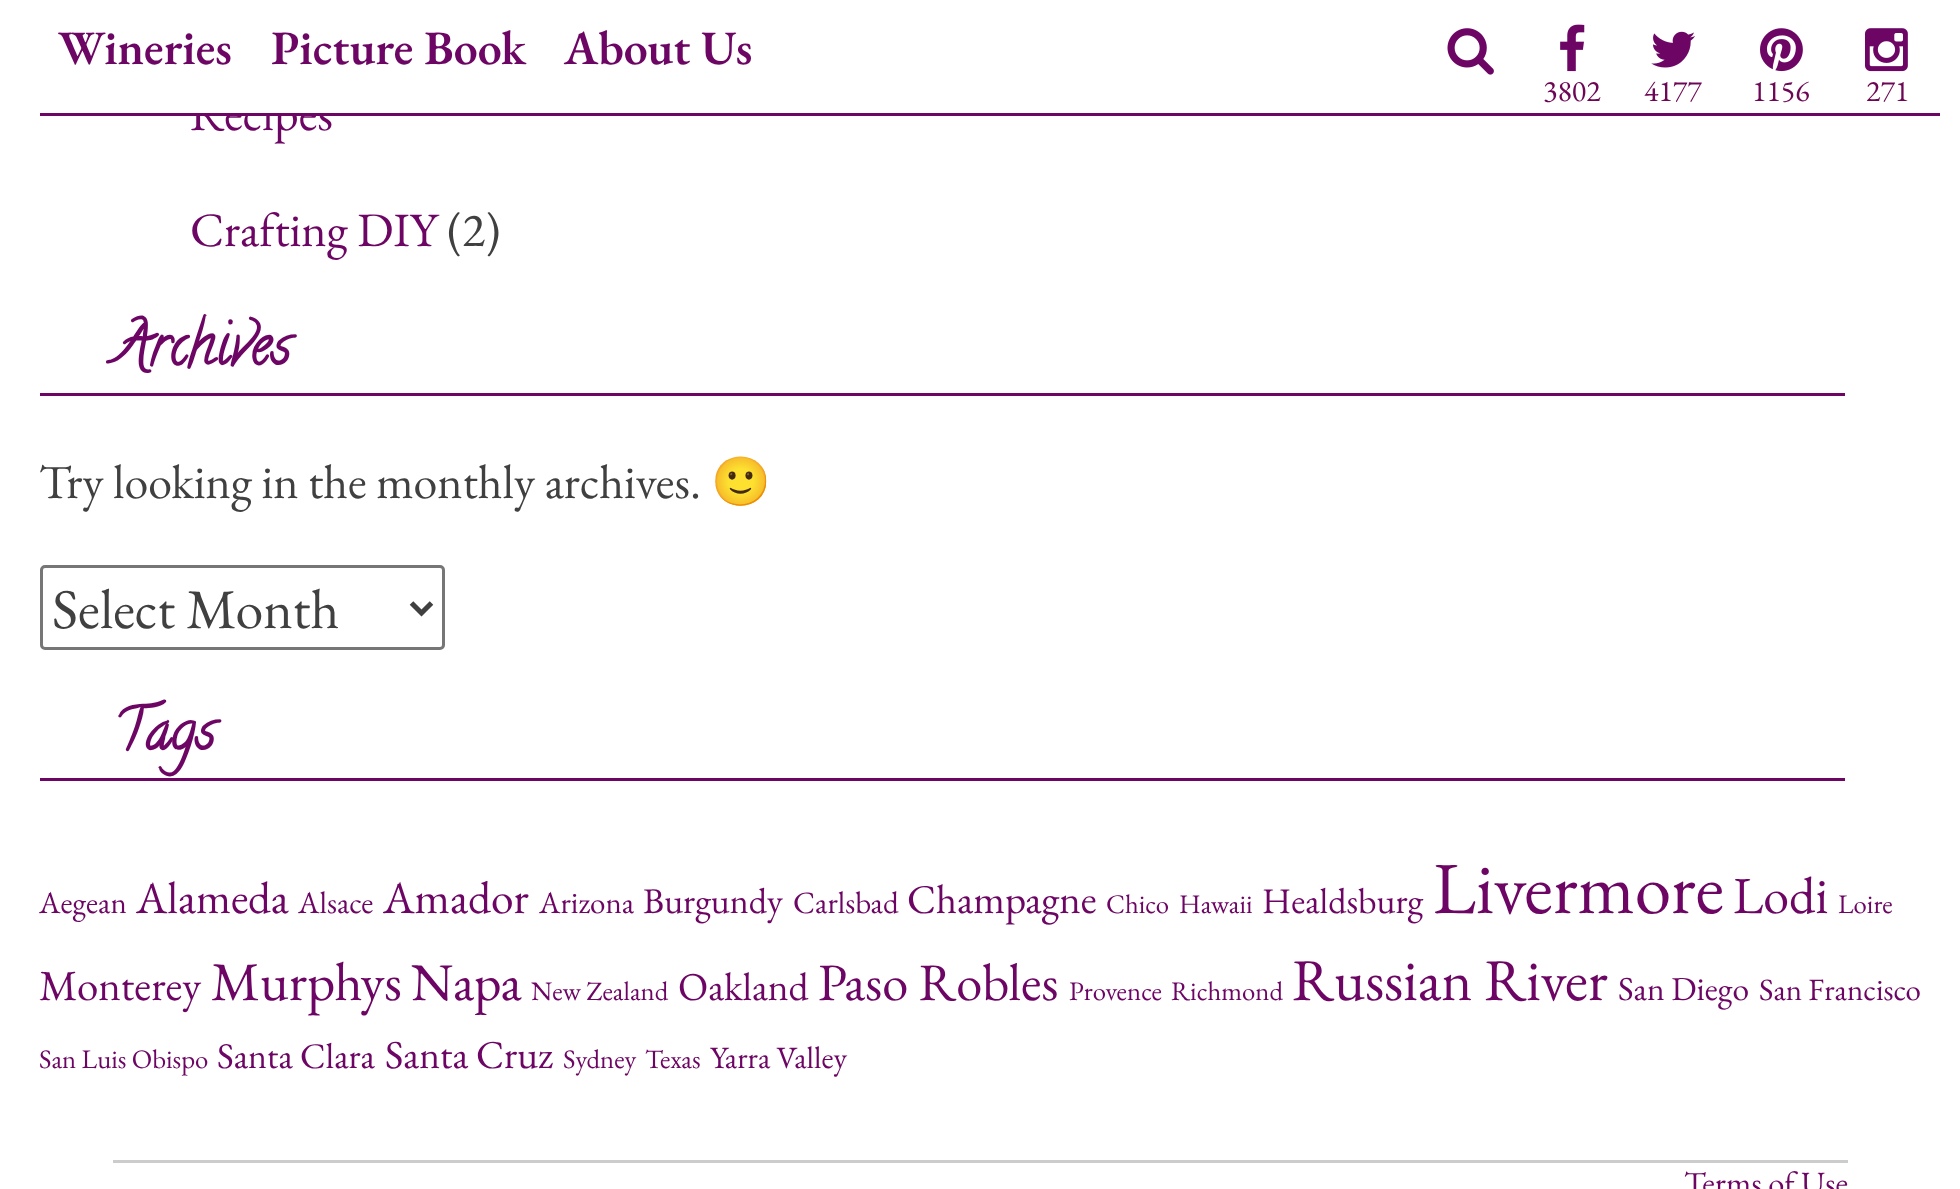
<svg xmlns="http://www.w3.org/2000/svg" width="1960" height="1189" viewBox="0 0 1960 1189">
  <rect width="100%" height="100%" fill="#fff"/>
  <image x="1447" y="28" width="47" height="47" href="img/1.png"/>
  <image x="1560" y="24" width="25" height="48" href="img/2.png"/>
  <image x="1651" y="31" width="44" height="37" href="img/3.png"/>
  <image x="1760" y="28" width="43" height="44" href="img/4.png"/>
  <image x="1865" y="28" width="43" height="44" href="img/5.png"/>
  <path d="M40 393h1805v3H40z" fill="#6d0564"/>
  <rect x="41.5" y="566.5" width="402" height="82" rx="3.5" fill="none" stroke="#767676" stroke-width="3"/>
  <path d="M411.5 603L421.5 613L431.5 603" fill="none" stroke="#404040" stroke-width="5"/>
  <path d="M40 778h1805v3H40z" fill="#6d0564"/>
  <path d="M113 1160h1735v3H113z" fill="#ccc"/>
  <g font-family="EB Garamond" font-size="48" font-weight="600" fill="#6d0564">
    <text x="58" y="64">Wineries</text>
    <text x="271" y="64">Picture Book</text>
    <text x="564" y="64">About Us</text>
  </g>
  <g font-family="EB Garamond" font-size="30" fill="#6d0654">
    <text x="1543" y="101">3802</text>
    <text x="1644" y="101">4177</text>
    <text x="1752" y="101">1156</text>
    <text x="1866" y="101">271</text>
  </g>
  <text x="190" y="130" font-family="EB Garamond" font-size="48" fill="#6d0564">Recipes</text>
  <path d="M191 98h140v17H191z" fill="#fff"/>
  <path d="M40 113h1900v3H40z" fill="#6d0564"/>
  <text x="190" y="246" font-family="EB Garamond" font-size="48" fill="#6d0564">Crafting DIY</text>
  <text x="447" y="246" font-family="EB Garamond" font-size="48" fill="#404040">(2)</text>
  <text x="114" y="363" font-family="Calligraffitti" font-size="56" font-weight="bold" fill="#6d0564">Archives</text>
  <text x="39" y="498" font-family="EB Garamond" font-size="48" fill="#404040">Try looking in the monthly archives.</text>
  <text x="711" y="498" font-family="Noto Color Emoji" font-size="48" fill="#404040">🙂</text>
  <text x="52" y="628" font-family="EB Garamond" font-size="56" fill="#404040">Select Month</text>
  <text x="114" y="748" font-family="Calligraffitti" font-size="56" font-weight="bold" fill="#6d0564">Tags</text>
  <text x="39" y="913" font-family="EB Garamond" font-size="31" fill="#6d0564">Aegean</text>
  <text x="136" y="913" font-family="EB Garamond" font-size="45" fill="#6d0564">Alameda</text>
  <text x="298" y="913" font-family="EB Garamond" font-size="31" fill="#6d0564">Alsace</text>
  <text x="383" y="913" font-family="EB Garamond" font-size="45.5" fill="#6d0564">Amador</text>
  <text x="539" y="913" font-family="EB Garamond" font-size="31" fill="#6d0564">Arizona</text>
  <text x="643" y="913" font-family="EB Garamond" font-size="36" fill="#6d0564">Burgundy</text>
  <text x="793" y="913" font-family="EB Garamond" font-size="31" fill="#6d0564">Carlsbad</text>
  <text x="907" y="913" font-family="EB Garamond" font-size="40.75" fill="#6d0564">Champagne</text>
  <g font-family="EB Garamond" font-size="26.75" fill="#6d0564">
    <text x="1106" y="913">Chico</text>
    <text x="1179" y="913">Hawaii</text>
  </g>
  <text x="1262" y="913" font-family="EB Garamond" font-size="36" fill="#6d0564">Healdsburg</text>
  <text x="1433" y="913" font-family="EB Garamond" font-size="73.5" fill="#6d0564">Livermore</text>
  <text x="1733" y="913" font-family="EB Garamond" font-size="52" fill="#6d0564">Lodi</text>
  <text x="1838" y="913" font-family="EB Garamond" font-size="26.75" fill="#6d0564">Loire</text>
  <text x="39" y="1000" font-family="EB Garamond" font-size="43" fill="#6d0564">Monterey</text>
  <text x="211" y="1000" font-family="EB Garamond" font-size="54.5" fill="#6d0564">Murphys</text>
  <text x="411" y="1000" font-family="EB Garamond" font-size="53" fill="#6d0564">Napa</text>
  <text x="531" y="1000" font-family="EB Garamond" font-size="26.75" fill="#6d0564">New Zealand</text>
  <text x="678" y="1000" font-family="EB Garamond" font-size="39.5" fill="#6d0564">Oakland</text>
  <text x="818" y="1000" font-family="EB Garamond" font-size="52.5" fill="#6d0564">Paso Robles</text>
  <g font-family="EB Garamond" font-size="26.75" fill="#6d0564">
    <text x="1069" y="1000">Provence</text>
    <text x="1171" y="1000">Richmond</text>
  </g>
  <text x="1292" y="1000" font-family="EB Garamond" font-size="59" fill="#6d0564">Russian River</text>
  <text x="1618" y="1000" font-family="EB Garamond" font-size="33.5" fill="#6d0564">San Diego</text>
  <text x="1759" y="1000" font-family="EB Garamond" font-size="31" fill="#6d0564">San Francisco</text>
  <text x="39" y="1068" font-family="EB Garamond" font-size="26.75" fill="#6d0564">San Luis Obispo</text>
  <text x="217" y="1068" font-family="EB Garamond" font-size="36" fill="#6d0564">Santa Clara</text>
  <text x="385" y="1068" font-family="EB Garamond" font-size="39.5" fill="#6d0564">Santa Cruz</text>
  <g font-family="EB Garamond" font-size="26.75" fill="#6d0564">
    <text x="563" y="1068">Sydney</text>
    <text x="645" y="1068">Texas</text>
  </g>
  <text x="710" y="1068" font-family="EB Garamond" font-size="31" fill="#6d0564">Yarra Valley</text>
  <text x="1684" y="1194" font-family="EB Garamond" font-size="32.5" fill="#6d0564">Terms of Use</text>
</svg>
